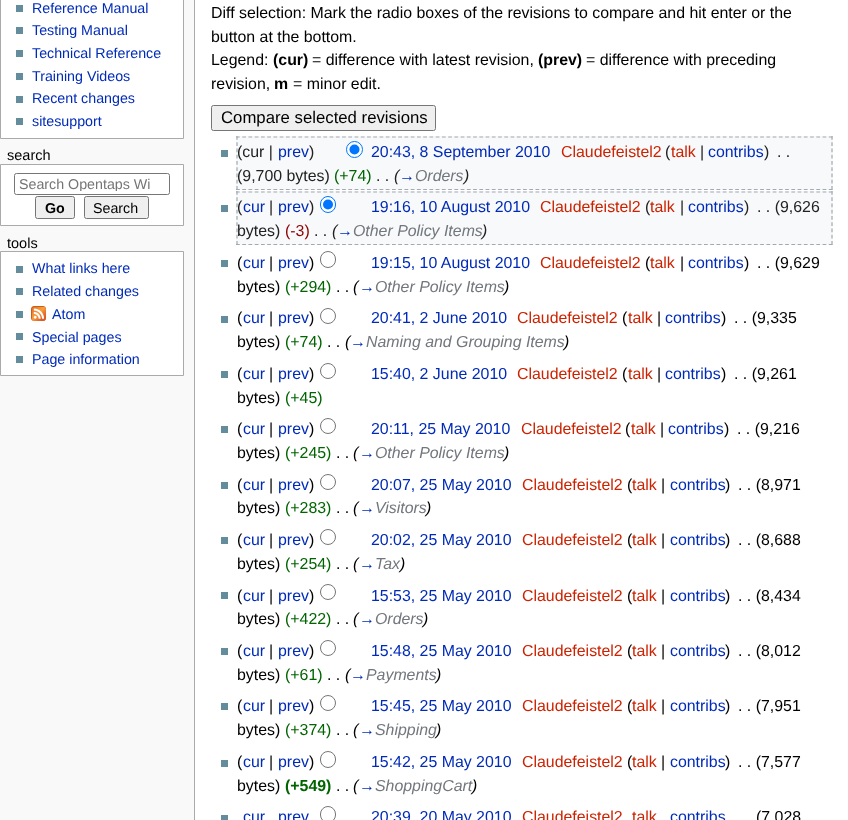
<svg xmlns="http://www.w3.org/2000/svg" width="848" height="820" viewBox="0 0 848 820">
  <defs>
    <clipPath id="clip1"><path d="M19 176h131v15H19z"/></clipPath>
  </defs>
  <rect width="100%" height="100%" fill="#f9f9f9"/>
  <path d="M0.5 -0.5h183v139H0.5z" fill="#fff" stroke="#aaa"/>
  <path d="M16 5h7v7H16z" fill="#638c9c"/>
  <path d="M16 27h7v7H16z" fill="#638c9c"/>
  <path d="M16 50h7v7H16z" fill="#638c9c"/>
  <path d="M16 73h7v7H16z" fill="#638c9c"/>
  <path d="M16 96h7v7H16z" fill="#638c9c"/>
  <path d="M16 118h7v7H16z" fill="#638c9c"/>
  <path d="M0.5 164.5h183v61H0.5z" fill="#fff" stroke="#aaa"/>
  <rect x="14.5" y="173.5" width="155" height="21" rx="2" fill="none" stroke="#767676"/>
  <rect x="35.5" y="196.5" width="39" height="22" rx="2" fill="#efefef" stroke="#767676"/>
  <rect x="84.5" y="196.5" width="64" height="22" rx="2" fill="#efefef" stroke="#767676"/>
  <path d="M0.5 251.5h183v124H0.5z" fill="#fff" stroke="#aaa"/>
  <path d="M16 266h7v7H16z" fill="#638c9c"/>
  <path d="M16 288h7v7H16z" fill="#638c9c"/>
  <path d="M16 311h7v7H16z" fill="#638c9c"/>
  <image x="31" y="306" width="15" height="15" href="img/1.png"/>
  <path d="M16 333h7v7H16z" fill="#638c9c"/>
  <path d="M16 356h7v7H16z" fill="#638c9c"/>
  <path d="M195 0h653v820H195z" fill="#fff"/>
  <path d="M194 0h1v820H194z" fill="#aaa"/>
  <rect x="211.5" y="105.5" width="224" height="25" rx="2" fill="#efefef" stroke="#767676"/>
  <path d="M236 136h597v54H236z" fill="#f8f9fa"/>
  <path d="M236 137H832.5" fill="none" stroke="#a2a9b1" stroke-width="1.2" stroke-dasharray="3.75 2.49"/>
  <path d="M832 136V190" fill="none" stroke="#a2a9b1" stroke-width="1.2" stroke-dasharray="3.75 2.5"/>
  <path d="M236 189.5H832.5" fill="none" stroke="#a2a9b1" stroke-width="1.2" stroke-dasharray="3.75 2.49"/>
  <path d="M237 136V190" fill="none" stroke="#a2a9b1" stroke-width="1.2" stroke-dasharray="3.75 2.5"/>
  <path d="M221 150h7v7H221z" fill="#638c9c"/>
  <circle cx="354.5" cy="149.5" r="8" fill="#fff" stroke="#0075ff"/>
  <circle cx="354.5" cy="149.5" r="5" fill="#0075ff"/>
  <path d="M236 191h597v54H236z" fill="#f8f9fa"/>
  <path d="M236 192H832.5" fill="none" stroke="#a2a9b1" stroke-width="1.2" stroke-dasharray="3.75 2.49"/>
  <path d="M832 191V245" fill="none" stroke="#a2a9b1" stroke-width="1.2" stroke-dasharray="3.75 2.5"/>
  <path d="M236 244.5H832.5" fill="none" stroke="#a2a9b1" stroke-width="1.2" stroke-dasharray="3.75 2.49"/>
  <path d="M237 191V245" fill="none" stroke="#a2a9b1" stroke-width="1.2" stroke-dasharray="3.75 2.5"/>
  <path d="M221 205h7v7H221z" fill="#638c9c"/>
  <rect x="320.5" y="196.5" width="15" height="16" rx="7.5" fill="#fff" stroke="#0075ff"/>
  <circle cx="328" cy="204.5" r="5" fill="#0075ff"/>
  <path d="M221 260h7v7H221z" fill="#638c9c"/>
  <rect x="320.5" y="251.5" width="15" height="16" rx="7.5" fill="none" stroke="#767676"/>
  <path d="M221 316h7v7H221z" fill="#638c9c"/>
  <circle cx="328" cy="316" r="7.5" fill="none" stroke="#767676"/>
  <path d="M221 371h7v7H221z" fill="#638c9c"/>
  <circle cx="328" cy="371" r="7.5" fill="none" stroke="#767676"/>
  <path d="M221 426h7v7H221z" fill="#638c9c"/>
  <circle cx="328" cy="426" r="7.5" fill="none" stroke="#767676"/>
  <path d="M221 482h7v7H221z" fill="#638c9c"/>
  <circle cx="328" cy="482" r="7.5" fill="none" stroke="#767676"/>
  <path d="M221 537h7v7H221z" fill="#638c9c"/>
  <circle cx="328" cy="537" r="7.5" fill="none" stroke="#767676"/>
  <path d="M221 592h7v7H221z" fill="#638c9c"/>
  <circle cx="328" cy="592" r="7.5" fill="none" stroke="#767676"/>
  <path d="M221 648h7v7H221z" fill="#638c9c"/>
  <circle cx="328" cy="648" r="7.5" fill="none" stroke="#767676"/>
  <path d="M221 703h7v7H221z" fill="#638c9c"/>
  <circle cx="328" cy="703" r="7.5" fill="none" stroke="#767676"/>
  <path d="M221 760h7v7H221z" fill="#638c9c"/>
  <rect x="320.5" y="751.5" width="15" height="16" rx="7.5" fill="none" stroke="#767676"/>
  <path d="M221 815h7v5H221z" fill="#638c9c"/>
  <rect x="320.5" y="806.5" width="15" height="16" rx="7.5" fill="none" stroke="#767676"/>
  <g font-family="Liberation Sans" font-size="14.25" fill="#002bb8">
    <text x="32" y="13">Reference Manual</text>
    <text x="32" y="35">Testing Manual</text>
    <text x="32" y="58">Technical Reference</text>
    <text x="32" y="81">Training Videos</text>
    <text x="32" y="103">Recent changes</text>
    <text x="32" y="126">sitesupport</text>
  </g>
  <text x="7" y="160" font-family="Liberation Sans" font-size="14.5" fill="#000">search</text>
  <g clip-path="url(#clip1)">
    <text x="19" y="189" font-family="Liberation Sans" font-size="14.25" fill="#757575">Search Opentaps Wi</text>
  </g>
  <text x="45" y="213" font-family="Liberation Sans" font-size="14.25" font-weight="bold" fill="#000">Go</text>
  <text x="93" y="213" font-family="Liberation Sans" font-size="14.25" fill="#000">Search</text>
  <text x="7" y="248" font-family="Liberation Sans" font-size="14.5" fill="#000">tools</text>
  <g font-family="Liberation Sans" font-size="14.25" fill="#002bb8">
    <text x="32" y="273">What links here</text>
    <text x="32" y="296">Related changes</text>
    <text x="52" y="319">Atom</text>
    <text x="32" y="342">Special pages</text>
    <text x="32" y="364">Page information</text>
  </g>
  <g font-family="Liberation Sans" font-size="15.9" fill="#000">
    <text x="211" y="18">Diff selection: Mark the radio boxes of the revisions to compare and hit enter or the</text>
    <text x="211" y="42">button at the bottom.</text>
    <text x="211" y="65">Legend:</text>
  </g>
  <text x="273" y="65" font-family="Liberation Sans" font-size="15.9" font-weight="bold" fill="#000">(cur)</text>
  <text x="312" y="65" font-family="Liberation Sans" font-size="15.9" fill="#000">= difference with latest revision,</text>
  <text x="538" y="65" font-family="Liberation Sans" font-size="15.9" font-weight="bold" fill="#000">(prev)</text>
  <g font-family="Liberation Sans" font-size="15.9" fill="#000">
    <text x="586" y="65">= difference with preceding</text>
    <text x="211" y="89">revision,</text>
  </g>
  <text x="274" y="89" font-family="Liberation Sans" font-size="15.9" font-weight="bold" fill="#000">m</text>
  <text x="293" y="89" font-family="Liberation Sans" font-size="15.9" fill="#000">= minor edit.</text>
  <text x="221" y="123" font-family="Liberation Sans" font-size="16.75" fill="#000">Compare selected revisions</text>
  <text x="237" y="157" font-family="Liberation Sans" font-size="15.9" fill="#222">(cur |</text>
  <text x="278" y="157" font-family="Liberation Sans" font-size="15.9" fill="#002bb8">prev</text>
  <text x="309" y="157" font-family="Liberation Sans" font-size="15.9" fill="#222">)</text>
  <text x="371" y="157" font-family="Liberation Sans" font-size="15.9" fill="#002bb8">20:43, 8 September 2010</text>
  <text x="561" y="157" font-family="Liberation Sans" font-size="15.9" fill="#c20">Claudefeistel2</text>
  <text x="665" y="157" font-family="Liberation Sans" font-size="15.9" fill="#222">(</text>
  <text x="671" y="157" font-family="Liberation Sans" font-size="15.9" fill="#c20">talk</text>
  <text x="700" y="157" font-family="Liberation Sans" font-size="15.9" fill="#222">|</text>
  <text x="708" y="157" font-family="Liberation Sans" font-size="15.9" fill="#002bb8">contribs</text>
  <g font-family="Liberation Sans" font-size="15.9" fill="#222">
    <text x="764" y="157">)</text>
    <text x="777" y="157">. .</text>
    <text x="237" y="181">(9,700 bytes)</text>
  </g>
  <text x="334" y="181" font-family="Liberation Sans" font-size="15.9" fill="#006400">(+74)</text>
  <text x="376" y="181" font-family="Liberation Sans" font-size="15.9" fill="#222">. .</text>
  <text x="394" y="181" font-family="Liberation Sans" font-size="15.9" font-style="italic" fill="#222">(</text>
  <text x="399" y="181" font-family="Liberation Sans" font-size="15.9" font-style="italic" fill="#002bb8">→</text>
  <text x="415" y="181" font-family="Liberation Sans" font-size="15.9" font-style="italic" fill="#72777d">Orders</text>
  <text x="464" y="181" font-family="Liberation Sans" font-size="15.9" font-style="italic" fill="#222">)</text>
  <text x="237" y="212" font-family="Liberation Sans" font-size="15.9" fill="#222">(</text>
  <text x="243" y="212" font-family="Liberation Sans" font-size="15.9" fill="#002bb8">cur</text>
  <text x="269" y="212" font-family="Liberation Sans" font-size="15.9" fill="#222">|</text>
  <text x="278" y="212" font-family="Liberation Sans" font-size="15.9" fill="#002bb8">prev</text>
  <text x="309" y="212" font-family="Liberation Sans" font-size="15.9" fill="#222">)</text>
  <text x="371" y="212" font-family="Liberation Sans" font-size="15.9" fill="#002bb8">19:16, 10 August 2010</text>
  <text x="540" y="212" font-family="Liberation Sans" font-size="15.9" fill="#c20">Claudefeistel2</text>
  <text x="645" y="212" font-family="Liberation Sans" font-size="15.9" fill="#222">(</text>
  <text x="650" y="212" font-family="Liberation Sans" font-size="15.9" fill="#c20">talk</text>
  <text x="680" y="212" font-family="Liberation Sans" font-size="15.9" fill="#222">|</text>
  <text x="688" y="212" font-family="Liberation Sans" font-size="15.9" fill="#002bb8">contribs</text>
  <g font-family="Liberation Sans" font-size="15.9" fill="#222">
    <text x="744" y="212">)</text>
    <text x="757" y="212">. . (9,626</text>
    <text x="237" y="236">bytes)</text>
  </g>
  <text x="285" y="236" font-family="Liberation Sans" font-size="15.9" fill="#8b0000">(-3)</text>
  <text x="314" y="236" font-family="Liberation Sans" font-size="15.9" fill="#222">. .</text>
  <text x="332" y="236" font-family="Liberation Sans" font-size="15.9" font-style="italic" fill="#222">(</text>
  <text x="337" y="236" font-family="Liberation Sans" font-size="15.9" font-style="italic" fill="#002bb8">→</text>
  <text x="353" y="236" font-family="Liberation Sans" font-size="15.9" font-style="italic" fill="#72777d">Other Policy Items</text>
  <text x="482" y="236" font-family="Liberation Sans" font-size="15.9" font-style="italic" fill="#222">)</text>
  <text x="237" y="268" font-family="Liberation Sans" font-size="15.9" fill="#000">(</text>
  <text x="243" y="268" font-family="Liberation Sans" font-size="15.9" fill="#002bb8">cur</text>
  <text x="269" y="268" font-family="Liberation Sans" font-size="15.9" fill="#000">|</text>
  <text x="278" y="268" font-family="Liberation Sans" font-size="15.9" fill="#002bb8">prev</text>
  <text x="309" y="268" font-family="Liberation Sans" font-size="15.9" fill="#000">)</text>
  <text x="371" y="268" font-family="Liberation Sans" font-size="15.9" fill="#002bb8">19:15, 10 August 2010</text>
  <text x="540" y="268" font-family="Liberation Sans" font-size="15.9" fill="#c20">Claudefeistel2</text>
  <text x="645" y="268" font-family="Liberation Sans" font-size="15.9" fill="#000">(</text>
  <text x="650" y="268" font-family="Liberation Sans" font-size="15.9" fill="#c20">talk</text>
  <text x="680" y="268" font-family="Liberation Sans" font-size="15.9" fill="#000">|</text>
  <text x="688" y="268" font-family="Liberation Sans" font-size="15.9" fill="#002bb8">contribs</text>
  <g font-family="Liberation Sans" font-size="15.9" fill="#000">
    <text x="744" y="268">)</text>
    <text x="757" y="268">. . (9,629</text>
    <text x="237" y="292">bytes)</text>
  </g>
  <text x="285" y="292" font-family="Liberation Sans" font-size="15.9" fill="#006400">(+294)</text>
  <text x="336" y="292" font-family="Liberation Sans" font-size="15.9" fill="#000">. .</text>
  <text x="353" y="292" font-family="Liberation Sans" font-size="15.9" font-style="italic" fill="#000">(</text>
  <text x="359" y="292" font-family="Liberation Sans" font-size="15.9" font-style="italic" fill="#002bb8">→</text>
  <text x="375" y="292" font-family="Liberation Sans" font-size="15.9" font-style="italic" fill="#72777d">Other Policy Items</text>
  <text x="504" y="292" font-family="Liberation Sans" font-size="15.9" font-style="italic" fill="#000">)</text>
  <text x="237" y="323" font-family="Liberation Sans" font-size="15.9" fill="#000">(</text>
  <text x="243" y="323" font-family="Liberation Sans" font-size="15.9" fill="#002bb8">cur</text>
  <text x="269" y="323" font-family="Liberation Sans" font-size="15.9" fill="#000">|</text>
  <text x="278" y="323" font-family="Liberation Sans" font-size="15.9" fill="#002bb8">prev</text>
  <text x="309" y="323" font-family="Liberation Sans" font-size="15.9" fill="#000">)</text>
  <text x="371" y="323" font-family="Liberation Sans" font-size="15.9" fill="#002bb8">20:41, 2 June 2010</text>
  <text x="517" y="323" font-family="Liberation Sans" font-size="15.9" fill="#c20">Claudefeistel2</text>
  <text x="622" y="323" font-family="Liberation Sans" font-size="15.9" fill="#000">(</text>
  <text x="628" y="323" font-family="Liberation Sans" font-size="15.9" fill="#c20">talk</text>
  <text x="657" y="323" font-family="Liberation Sans" font-size="15.9" fill="#000">|</text>
  <text x="665" y="323" font-family="Liberation Sans" font-size="15.9" fill="#002bb8">contribs</text>
  <g font-family="Liberation Sans" font-size="15.9" fill="#000">
    <text x="721" y="323">)</text>
    <text x="734" y="323">. . (9,335</text>
    <text x="237" y="347">bytes)</text>
  </g>
  <text x="285" y="347" font-family="Liberation Sans" font-size="15.9" fill="#006400">(+74)</text>
  <text x="327" y="347" font-family="Liberation Sans" font-size="15.9" fill="#000">. .</text>
  <text x="345" y="347" font-family="Liberation Sans" font-size="15.9" font-style="italic" fill="#000">(</text>
  <text x="350" y="347" font-family="Liberation Sans" font-size="15.9" font-style="italic" fill="#002bb8">→</text>
  <text x="366" y="347" font-family="Liberation Sans" font-size="15.9" font-style="italic" fill="#72777d">Naming and Grouping Items</text>
  <text x="564" y="347" font-family="Liberation Sans" font-size="15.9" font-style="italic" fill="#000">)</text>
  <text x="237" y="379" font-family="Liberation Sans" font-size="15.9" fill="#000">(</text>
  <text x="243" y="379" font-family="Liberation Sans" font-size="15.9" fill="#002bb8">cur</text>
  <text x="269" y="379" font-family="Liberation Sans" font-size="15.9" fill="#000">|</text>
  <text x="278" y="379" font-family="Liberation Sans" font-size="15.9" fill="#002bb8">prev</text>
  <text x="309" y="379" font-family="Liberation Sans" font-size="15.9" fill="#000">)</text>
  <text x="371" y="379" font-family="Liberation Sans" font-size="15.9" fill="#002bb8">15:40, 2 June 2010</text>
  <text x="517" y="379" font-family="Liberation Sans" font-size="15.9" fill="#c20">Claudefeistel2</text>
  <text x="622" y="379" font-family="Liberation Sans" font-size="15.9" fill="#000">(</text>
  <text x="628" y="379" font-family="Liberation Sans" font-size="15.9" fill="#c20">talk</text>
  <text x="657" y="379" font-family="Liberation Sans" font-size="15.9" fill="#000">|</text>
  <text x="665" y="379" font-family="Liberation Sans" font-size="15.9" fill="#002bb8">contribs</text>
  <g font-family="Liberation Sans" font-size="15.9" fill="#000">
    <text x="721" y="379">)</text>
    <text x="734" y="379">. . (9,261</text>
    <text x="237" y="403">bytes)</text>
  </g>
  <text x="285" y="403" font-family="Liberation Sans" font-size="15.9" fill="#006400">(+45)</text>
  <text x="237" y="434" font-family="Liberation Sans" font-size="15.9" fill="#000">(</text>
  <text x="243" y="434" font-family="Liberation Sans" font-size="15.9" fill="#002bb8">cur</text>
  <text x="269" y="434" font-family="Liberation Sans" font-size="15.9" fill="#000">|</text>
  <text x="278" y="434" font-family="Liberation Sans" font-size="15.9" fill="#002bb8">prev</text>
  <text x="309" y="434" font-family="Liberation Sans" font-size="15.9" fill="#000">)</text>
  <text x="371" y="434" font-family="Liberation Sans" font-size="15.9" fill="#002bb8">20:11, 25 May 2010</text>
  <text x="521" y="434" font-family="Liberation Sans" font-size="15.9" fill="#c20">Claudefeistel2</text>
  <text x="625" y="434" font-family="Liberation Sans" font-size="15.9" fill="#000">(</text>
  <text x="631" y="434" font-family="Liberation Sans" font-size="15.9" fill="#c20">talk</text>
  <text x="660" y="434" font-family="Liberation Sans" font-size="15.9" fill="#000">|</text>
  <text x="668" y="434" font-family="Liberation Sans" font-size="15.9" fill="#002bb8">contribs</text>
  <g font-family="Liberation Sans" font-size="15.9" fill="#000">
    <text x="724" y="434">)</text>
    <text x="737" y="434">. . (9,216</text>
    <text x="237" y="458">bytes)</text>
  </g>
  <text x="285" y="458" font-family="Liberation Sans" font-size="15.9" fill="#006400">(+245)</text>
  <text x="336" y="458" font-family="Liberation Sans" font-size="15.9" fill="#000">. .</text>
  <text x="353" y="458" font-family="Liberation Sans" font-size="15.9" font-style="italic" fill="#000">(</text>
  <text x="359" y="458" font-family="Liberation Sans" font-size="15.9" font-style="italic" fill="#002bb8">→</text>
  <text x="375" y="458" font-family="Liberation Sans" font-size="15.9" font-style="italic" fill="#72777d">Other Policy Items</text>
  <text x="504" y="458" font-family="Liberation Sans" font-size="15.9" font-style="italic" fill="#000">)</text>
  <text x="237" y="490" font-family="Liberation Sans" font-size="15.9" fill="#000">(</text>
  <text x="243" y="490" font-family="Liberation Sans" font-size="15.9" fill="#002bb8">cur</text>
  <text x="269" y="490" font-family="Liberation Sans" font-size="15.9" fill="#000">|</text>
  <text x="278" y="490" font-family="Liberation Sans" font-size="15.9" fill="#002bb8">prev</text>
  <text x="309" y="490" font-family="Liberation Sans" font-size="15.9" fill="#000">)</text>
  <text x="371" y="490" font-family="Liberation Sans" font-size="15.9" fill="#002bb8">20:07, 25 May 2010</text>
  <text x="522" y="490" font-family="Liberation Sans" font-size="15.9" fill="#c20">Claudefeistel2</text>
  <text x="627" y="490" font-family="Liberation Sans" font-size="15.9" fill="#000">(</text>
  <text x="632" y="490" font-family="Liberation Sans" font-size="15.9" fill="#c20">talk</text>
  <text x="661" y="490" font-family="Liberation Sans" font-size="15.9" fill="#000">|</text>
  <text x="670" y="490" font-family="Liberation Sans" font-size="15.9" fill="#002bb8">contribs</text>
  <g font-family="Liberation Sans" font-size="15.9" fill="#000">
    <text x="725" y="490">)</text>
    <text x="738" y="490">. . (8,971</text>
    <text x="237" y="513">bytes)</text>
  </g>
  <text x="285" y="513" font-family="Liberation Sans" font-size="15.9" fill="#006400">(+283)</text>
  <text x="336" y="513" font-family="Liberation Sans" font-size="15.9" fill="#000">. .</text>
  <text x="353" y="513" font-family="Liberation Sans" font-size="15.9" font-style="italic" fill="#000">(</text>
  <text x="359" y="513" font-family="Liberation Sans" font-size="15.9" font-style="italic" fill="#002bb8">→</text>
  <text x="375" y="513" font-family="Liberation Sans" font-size="15.9" font-style="italic" fill="#72777d">Visitors</text>
  <text x="426" y="513" font-family="Liberation Sans" font-size="15.9" font-style="italic" fill="#000">)</text>
  <text x="237" y="545" font-family="Liberation Sans" font-size="15.9" fill="#000">(</text>
  <text x="243" y="545" font-family="Liberation Sans" font-size="15.9" fill="#002bb8">cur</text>
  <text x="269" y="545" font-family="Liberation Sans" font-size="15.9" fill="#000">|</text>
  <text x="278" y="545" font-family="Liberation Sans" font-size="15.9" fill="#002bb8">prev</text>
  <text x="309" y="545" font-family="Liberation Sans" font-size="15.9" fill="#000">)</text>
  <text x="371" y="545" font-family="Liberation Sans" font-size="15.9" fill="#002bb8">20:02, 25 May 2010</text>
  <text x="522" y="545" font-family="Liberation Sans" font-size="15.9" fill="#c20">Claudefeistel2</text>
  <text x="627" y="545" font-family="Liberation Sans" font-size="15.9" fill="#000">(</text>
  <text x="632" y="545" font-family="Liberation Sans" font-size="15.9" fill="#c20">talk</text>
  <text x="661" y="545" font-family="Liberation Sans" font-size="15.9" fill="#000">|</text>
  <text x="670" y="545" font-family="Liberation Sans" font-size="15.9" fill="#002bb8">contribs</text>
  <g font-family="Liberation Sans" font-size="15.9" fill="#000">
    <text x="725" y="545">)</text>
    <text x="738" y="545">. . (8,688</text>
    <text x="237" y="569">bytes)</text>
  </g>
  <text x="285" y="569" font-family="Liberation Sans" font-size="15.9" fill="#006400">(+254)</text>
  <text x="336" y="569" font-family="Liberation Sans" font-size="15.9" fill="#000">. .</text>
  <text x="353" y="569" font-family="Liberation Sans" font-size="15.9" font-style="italic" fill="#000">(</text>
  <text x="359" y="569" font-family="Liberation Sans" font-size="15.9" font-style="italic" fill="#002bb8">→</text>
  <text x="375" y="569" font-family="Liberation Sans" font-size="15.9" font-style="italic" fill="#72777d">Tax</text>
  <text x="400" y="569" font-family="Liberation Sans" font-size="15.9" font-style="italic" fill="#000">)</text>
  <text x="237" y="601" font-family="Liberation Sans" font-size="15.9" fill="#000">(</text>
  <text x="243" y="601" font-family="Liberation Sans" font-size="15.9" fill="#002bb8">cur</text>
  <text x="269" y="601" font-family="Liberation Sans" font-size="15.9" fill="#000">|</text>
  <text x="278" y="601" font-family="Liberation Sans" font-size="15.9" fill="#002bb8">prev</text>
  <text x="309" y="601" font-family="Liberation Sans" font-size="15.9" fill="#000">)</text>
  <text x="371" y="601" font-family="Liberation Sans" font-size="15.9" fill="#002bb8">15:53, 25 May 2010</text>
  <text x="522" y="601" font-family="Liberation Sans" font-size="15.9" fill="#c20">Claudefeistel2</text>
  <text x="627" y="601" font-family="Liberation Sans" font-size="15.9" fill="#000">(</text>
  <text x="632" y="601" font-family="Liberation Sans" font-size="15.9" fill="#c20">talk</text>
  <text x="661" y="601" font-family="Liberation Sans" font-size="15.9" fill="#000">|</text>
  <text x="670" y="601" font-family="Liberation Sans" font-size="15.9" fill="#002bb8">contribs</text>
  <g font-family="Liberation Sans" font-size="15.9" fill="#000">
    <text x="725" y="601">)</text>
    <text x="738" y="601">. . (8,434</text>
    <text x="237" y="624">bytes)</text>
  </g>
  <text x="285" y="624" font-family="Liberation Sans" font-size="15.9" fill="#006400">(+422)</text>
  <text x="336" y="624" font-family="Liberation Sans" font-size="15.9" fill="#000">. .</text>
  <text x="353" y="624" font-family="Liberation Sans" font-size="15.9" font-style="italic" fill="#000">(</text>
  <text x="359" y="624" font-family="Liberation Sans" font-size="15.9" font-style="italic" fill="#002bb8">→</text>
  <text x="375" y="624" font-family="Liberation Sans" font-size="15.9" font-style="italic" fill="#72777d">Orders</text>
  <text x="423" y="624" font-family="Liberation Sans" font-size="15.9" font-style="italic" fill="#000">)</text>
  <text x="237" y="656" font-family="Liberation Sans" font-size="15.9" fill="#000">(</text>
  <text x="243" y="656" font-family="Liberation Sans" font-size="15.9" fill="#002bb8">cur</text>
  <text x="269" y="656" font-family="Liberation Sans" font-size="15.9" fill="#000">|</text>
  <text x="278" y="656" font-family="Liberation Sans" font-size="15.9" fill="#002bb8">prev</text>
  <text x="309" y="656" font-family="Liberation Sans" font-size="15.9" fill="#000">)</text>
  <text x="371" y="656" font-family="Liberation Sans" font-size="15.9" fill="#002bb8">15:48, 25 May 2010</text>
  <text x="522" y="656" font-family="Liberation Sans" font-size="15.9" fill="#c20">Claudefeistel2</text>
  <text x="627" y="656" font-family="Liberation Sans" font-size="15.9" fill="#000">(</text>
  <text x="632" y="656" font-family="Liberation Sans" font-size="15.9" fill="#c20">talk</text>
  <text x="661" y="656" font-family="Liberation Sans" font-size="15.9" fill="#000">|</text>
  <text x="670" y="656" font-family="Liberation Sans" font-size="15.9" fill="#002bb8">contribs</text>
  <g font-family="Liberation Sans" font-size="15.9" fill="#000">
    <text x="725" y="656">)</text>
    <text x="738" y="656">. . (8,012</text>
    <text x="237" y="680">bytes)</text>
  </g>
  <text x="285" y="680" font-family="Liberation Sans" font-size="15.9" fill="#006400">(+61)</text>
  <text x="327" y="680" font-family="Liberation Sans" font-size="15.9" fill="#000">. .</text>
  <text x="345" y="680" font-family="Liberation Sans" font-size="15.9" font-style="italic" fill="#000">(</text>
  <text x="350" y="680" font-family="Liberation Sans" font-size="15.9" font-style="italic" fill="#002bb8">→</text>
  <text x="366" y="680" font-family="Liberation Sans" font-size="15.9" font-style="italic" fill="#72777d">Payments</text>
  <text x="436" y="680" font-family="Liberation Sans" font-size="15.9" font-style="italic" fill="#000">)</text>
  <text x="237" y="711" font-family="Liberation Sans" font-size="15.9" fill="#000">(</text>
  <text x="243" y="711" font-family="Liberation Sans" font-size="15.9" fill="#002bb8">cur</text>
  <text x="269" y="711" font-family="Liberation Sans" font-size="15.9" fill="#000">|</text>
  <text x="278" y="711" font-family="Liberation Sans" font-size="15.9" fill="#002bb8">prev</text>
  <text x="309" y="711" font-family="Liberation Sans" font-size="15.9" fill="#000">)</text>
  <text x="371" y="711" font-family="Liberation Sans" font-size="15.9" fill="#002bb8">15:45, 25 May 2010</text>
  <text x="522" y="711" font-family="Liberation Sans" font-size="15.9" fill="#c20">Claudefeistel2</text>
  <text x="627" y="711" font-family="Liberation Sans" font-size="15.9" fill="#000">(</text>
  <text x="632" y="711" font-family="Liberation Sans" font-size="15.9" fill="#c20">talk</text>
  <text x="661" y="711" font-family="Liberation Sans" font-size="15.9" fill="#000">|</text>
  <text x="670" y="711" font-family="Liberation Sans" font-size="15.9" fill="#002bb8">contribs</text>
  <g font-family="Liberation Sans" font-size="15.9" fill="#000">
    <text x="725" y="711">)</text>
    <text x="738" y="711">. . (7,951</text>
    <text x="237" y="735">bytes)</text>
  </g>
  <text x="285" y="735" font-family="Liberation Sans" font-size="15.9" fill="#006400">(+374)</text>
  <text x="336" y="735" font-family="Liberation Sans" font-size="15.9" fill="#000">. .</text>
  <text x="353" y="735" font-family="Liberation Sans" font-size="15.9" font-style="italic" fill="#000">(</text>
  <text x="359" y="735" font-family="Liberation Sans" font-size="15.9" font-style="italic" fill="#002bb8">→</text>
  <text x="375" y="735" font-family="Liberation Sans" font-size="15.9" font-style="italic" fill="#72777d">Shipping</text>
  <text x="436" y="735" font-family="Liberation Sans" font-size="15.9" font-style="italic" fill="#000">)</text>
  <text x="237" y="767" font-family="Liberation Sans" font-size="15.9" fill="#000">(</text>
  <text x="243" y="767" font-family="Liberation Sans" font-size="15.9" fill="#002bb8">cur</text>
  <text x="269" y="767" font-family="Liberation Sans" font-size="15.9" fill="#000">|</text>
  <text x="278" y="767" font-family="Liberation Sans" font-size="15.9" fill="#002bb8">prev</text>
  <text x="309" y="767" font-family="Liberation Sans" font-size="15.9" fill="#000">)</text>
  <text x="371" y="767" font-family="Liberation Sans" font-size="15.9" fill="#002bb8">15:42, 25 May 2010</text>
  <text x="522" y="767" font-family="Liberation Sans" font-size="15.9" fill="#c20">Claudefeistel2</text>
  <text x="627" y="767" font-family="Liberation Sans" font-size="15.9" fill="#000">(</text>
  <text x="632" y="767" font-family="Liberation Sans" font-size="15.9" fill="#c20">talk</text>
  <text x="661" y="767" font-family="Liberation Sans" font-size="15.9" fill="#000">|</text>
  <text x="670" y="767" font-family="Liberation Sans" font-size="15.9" fill="#002bb8">contribs</text>
  <g font-family="Liberation Sans" font-size="15.9" fill="#000">
    <text x="725" y="767">)</text>
    <text x="738" y="767">. . (7,577</text>
    <text x="237" y="791">bytes)</text>
  </g>
  <text x="285" y="791" font-family="Liberation Sans" font-size="15.9" font-weight="bold" fill="#006400">(+549)</text>
  <text x="353" y="791" font-family="Liberation Sans" font-size="15.9" font-style="italic" fill="#000">(</text>
  <text x="375" y="791" font-family="Liberation Sans" font-size="15.9" font-style="italic" fill="#72777d">ShoppingCart</text>
  <text x="336" y="791" font-family="Liberation Sans" font-size="15.9" fill="#000">. .</text>
  <text x="359" y="791" font-family="Liberation Sans" font-size="15.9" font-style="italic" fill="#002bb8">→</text>
  <text x="472" y="791" font-family="Liberation Sans" font-size="15.9" font-style="italic" fill="#000">)</text>
  <g font-family="Liberation Sans" font-size="15.9" fill="#002bb8">
    <text x="243" y="822">cur</text>
    <text x="278" y="822">prev</text>
    <text x="371" y="822">20:39, 20 May 2010</text>
  </g>
  <g font-family="Liberation Sans" font-size="15.9" fill="#c20">
    <text x="522" y="822">Claudefeistel2</text>
    <text x="632" y="822">talk</text>
  </g>
  <text x="670" y="822" font-family="Liberation Sans" font-size="15.9" fill="#002bb8">contribs</text>
  <text x="756" y="822" font-family="Liberation Sans" font-size="15.9" fill="#000">(7,028</text>
</svg>
